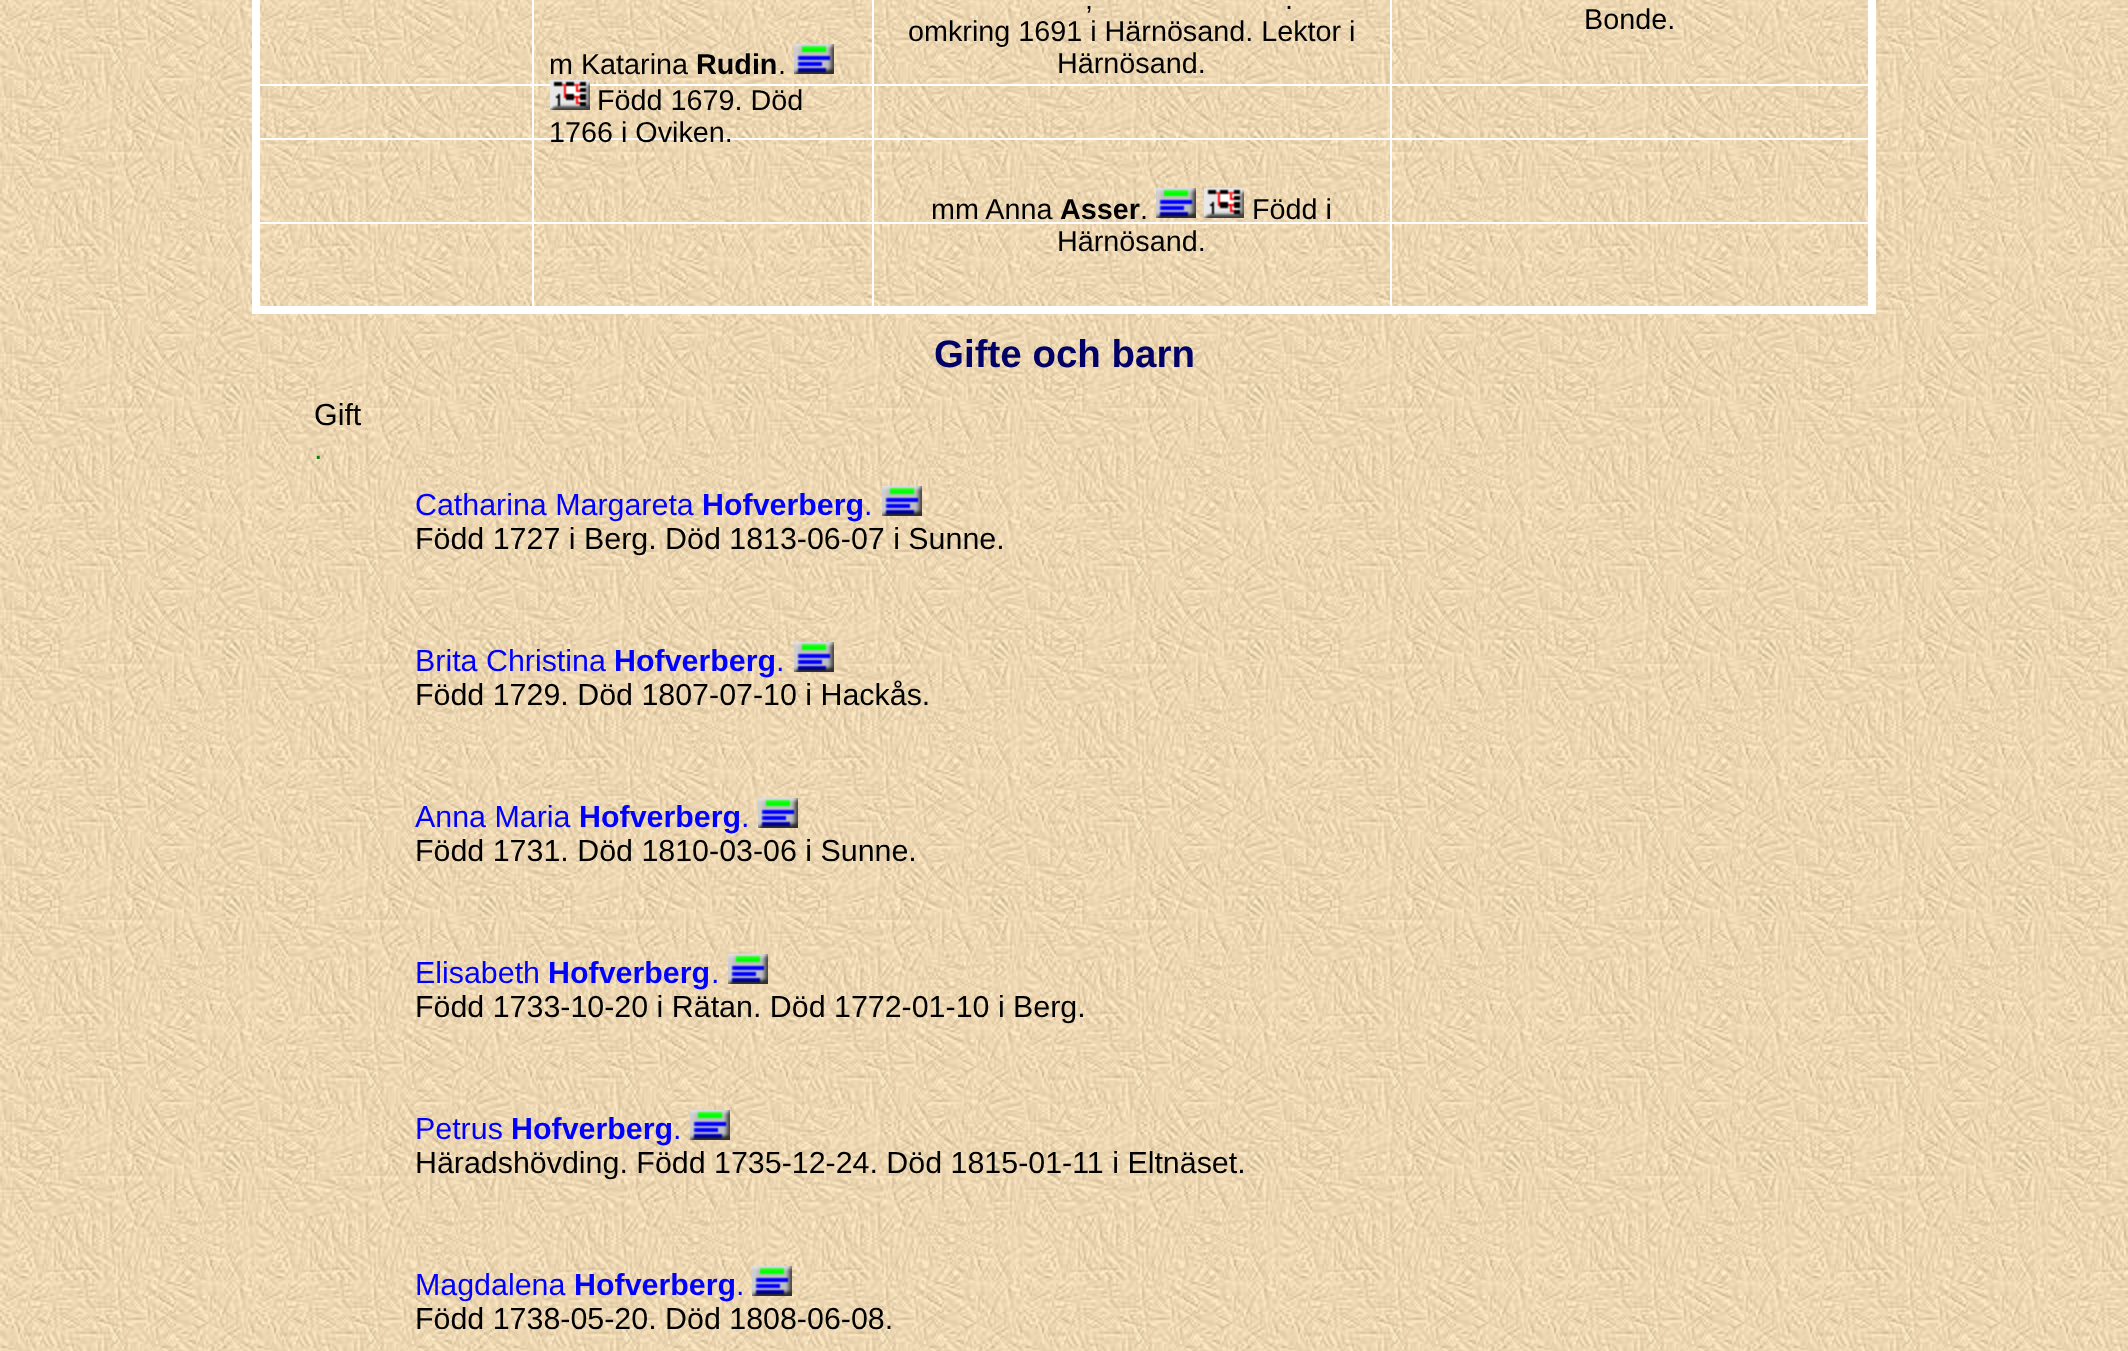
<svg xmlns="http://www.w3.org/2000/svg" width="2128" height="1351" viewBox="0 0 2128 1351">
  <rect width="100%" height="100%" fill="#fff"/>
  <image x="0" y="0" width="2128" height="1351" href="img/1.png"/>
  <path d="M256 222h1616v2H256z" fill="#fff"/>
  <path d="M256 84h1616v2H256z" fill="#fff"/>
  <path d="M256 138h1616v2H256z" fill="#fff"/>
  <path d="M1868 0h8v314H1868z" fill="#fff"/>
  <path d="M1390 0h2v310H1390z" fill="#fff"/>
  <path d="M532 0h2v310H532z" fill="#fff"/>
  <path d="M872 0h2v310H872z" fill="#fff"/>
  <path d="M252 306h1624v8H252z" fill="#fff"/>
  <path d="M252 0h8v314H252z" fill="#fff"/>
  <image x="794" y="44" width="40" height="30" href="img/2.png"/>
  <image x="550" y="80" width="40" height="30" href="img/3.png"/>
  <image x="1156" y="188" width="40" height="30" href="img/2.png"/>
  <image x="1204" y="188" width="40" height="30" href="img/3.png"/>
  <image x="882" y="486" width="40" height="30" href="img/2.png"/>
  <image x="794" y="642" width="40" height="30" href="img/2.png"/>
  <image x="758" y="798" width="40" height="30" href="img/2.png"/>
  <image x="728" y="954" width="40" height="30" href="img/2.png"/>
  <image x="690" y="1110" width="40" height="30" href="img/2.png"/>
  <image x="752" y="1266" width="40" height="30" href="img/2.png"/>
  <g font-family="Liberation Sans" font-size="28.75" fill="#000">
    <text x="1085" y="9">,</text>
    <text x="1285" y="9">.</text>
    <text x="908" y="41">omkring 1691 i Härnösand. Lektor i</text>
    <text x="1057" y="73">Härnösand.</text>
    <text x="1584" y="29">Bonde.</text>
    <text x="549" y="74">m Katarina</text>
  </g>
  <text x="696" y="74" font-family="Liberation Sans" font-size="28.75" font-weight="bold" fill="#000">Rudin</text>
  <g font-family="Liberation Sans" font-size="28.75" fill="#000">
    <text x="778" y="74">.</text>
    <text x="597" y="110">Född 1679. Död</text>
    <text x="549" y="142">1766 i Oviken.</text>
    <text x="931" y="219">mm Anna</text>
  </g>
  <text x="1060" y="219" font-family="Liberation Sans" font-size="28.75" font-weight="bold" fill="#000">Asser</text>
  <g font-family="Liberation Sans" font-size="28.75" fill="#000">
    <text x="1140" y="219">.</text>
    <text x="1252" y="219">Född i</text>
    <text x="1057" y="251">Härnösand.</text>
  </g>
  <text x="934" y="367" font-family="Liberation Sans" font-size="38.5" font-weight="bold" fill="#006">Gifte och barn</text>
  <text x="314" y="425" font-family="Liberation Sans" font-size="30.4" fill="#000">Gift</text>
  <text x="314" y="459" font-family="Liberation Sans" font-size="30.4" fill="#008000">.</text>
  <text x="415" y="515" font-family="Liberation Sans" font-size="30.4" fill="#00f">Catharina Margareta</text>
  <text x="702" y="515" font-family="Liberation Sans" font-size="30.4" font-weight="bold" fill="#00f">Hofverberg</text>
  <text x="864" y="515" font-family="Liberation Sans" font-size="30.4" fill="#00f">.</text>
  <text x="415" y="549" font-family="Liberation Sans" font-size="30.4" fill="#000">Född 1727 i Berg. Död 1813-06-07 i Sunne.</text>
  <text x="415" y="671" font-family="Liberation Sans" font-size="30.4" fill="#00f">Brita Christina</text>
  <text x="614" y="671" font-family="Liberation Sans" font-size="30.4" font-weight="bold" fill="#00f">Hofverberg</text>
  <text x="776" y="671" font-family="Liberation Sans" font-size="30.4" fill="#00f">.</text>
  <text x="415" y="705" font-family="Liberation Sans" font-size="30.4" fill="#000">Född 1729. Död 1807-07-10 i Hackås.</text>
  <text x="415" y="827" font-family="Liberation Sans" font-size="30.4" fill="#00f">Anna Maria</text>
  <text x="579" y="827" font-family="Liberation Sans" font-size="30.4" font-weight="bold" fill="#00f">Hofverberg</text>
  <text x="741" y="827" font-family="Liberation Sans" font-size="30.4" fill="#00f">.</text>
  <text x="415" y="861" font-family="Liberation Sans" font-size="30.4" fill="#000">Född 1731. Död 1810-03-06 i Sunne.</text>
  <text x="415" y="983" font-family="Liberation Sans" font-size="30.4" fill="#00f">Elisabeth</text>
  <text x="548" y="983" font-family="Liberation Sans" font-size="30.4" font-weight="bold" fill="#00f">Hofverberg</text>
  <text x="711" y="983" font-family="Liberation Sans" font-size="30.4" fill="#00f">.</text>
  <text x="415" y="1017" font-family="Liberation Sans" font-size="30.4" fill="#000">Född 1733-10-20 i Rätan. Död 1772-01-10 i Berg.</text>
  <text x="415" y="1139" font-family="Liberation Sans" font-size="30.4" fill="#00f">Petrus</text>
  <text x="511" y="1139" font-family="Liberation Sans" font-size="30.4" font-weight="bold" fill="#00f">Hofverberg</text>
  <text x="673" y="1139" font-family="Liberation Sans" font-size="30.4" fill="#00f">.</text>
  <text x="415" y="1173" font-family="Liberation Sans" font-size="30.4" fill="#000">Häradshövding. Född 1735-12-24. Död 1815-01-11 i Eltnäset.</text>
  <text x="415" y="1295" font-family="Liberation Sans" font-size="30.4" fill="#00f">Magdalena</text>
  <text x="574" y="1295" font-family="Liberation Sans" font-size="30.4" font-weight="bold" fill="#00f">Hofverberg</text>
  <text x="736" y="1295" font-family="Liberation Sans" font-size="30.4" fill="#00f">.</text>
  <text x="415" y="1329" font-family="Liberation Sans" font-size="30.4" fill="#000">Född 1738-05-20. Död 1808-06-08.</text>
</svg>
